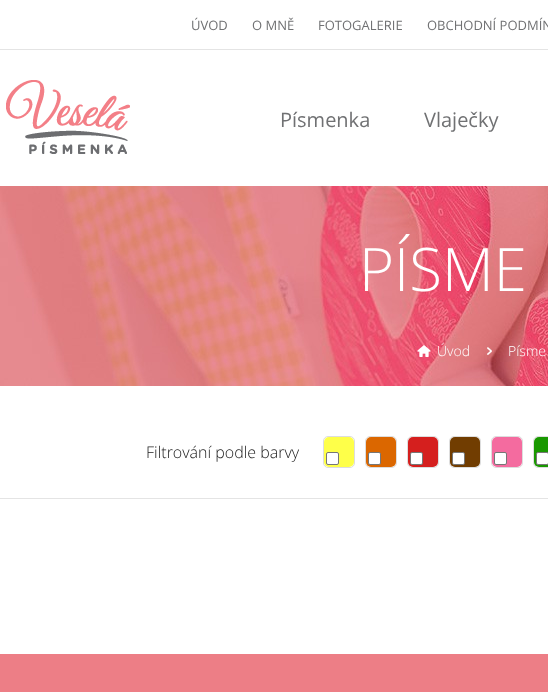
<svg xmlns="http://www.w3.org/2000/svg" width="548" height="692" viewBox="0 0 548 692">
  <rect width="100%" height="100%" fill="#fff"/>
  <path d="M0 49h548v1H0z" fill="#e4e4e4"/>
  <image x="6" y="80" width="124" height="74" href="img/1.png"/>
  <image x="0" y="186" width="548" height="200" href="img/2.png"/>
  <image x="417" y="345" width="14" height="12" href="img/3.png"/>
  <image x="487" y="347" width="5" height="8" href="img/4.png"/>
  <path d="M0 498h548v1H0z" fill="#e4e4e4"/>
  <rect x="323.5" y="436.5" width="31" height="31" rx="4.5" fill="none" stroke="#ddd"/>
  <image x="324" y="437" width="30" height="30" href="img/5.png"/>
  <rect x="326.5" y="452.5" width="12" height="12" rx="1.5" fill="#fff" stroke="#767676"/>
  <rect x="365.5" y="436.5" width="31" height="31" rx="4.5" fill="none" stroke="#ddd"/>
  <image x="366" y="437" width="30" height="30" href="img/6.png"/>
  <rect x="368.5" y="452.5" width="12" height="12" rx="1.5" fill="#fff" stroke="#767676"/>
  <rect x="407.5" y="436.5" width="31" height="31" rx="4.5" fill="none" stroke="#ddd"/>
  <image x="408" y="437" width="30" height="30" href="img/7.png"/>
  <rect x="410.5" y="452.5" width="12" height="12" rx="1.5" fill="#fff" stroke="#767676"/>
  <rect x="449.5" y="436.5" width="31" height="31" rx="4.5" fill="none" stroke="#ddd"/>
  <image x="450" y="437" width="30" height="30" href="img/8.png"/>
  <rect x="452.5" y="452.5" width="12" height="12" rx="1.5" fill="#fff" stroke="#767676"/>
  <rect x="491.5" y="436.5" width="31" height="31" rx="4.5" fill="none" stroke="#ddd"/>
  <image x="492" y="437" width="30" height="30" href="img/9.png"/>
  <rect x="494.5" y="452.5" width="12" height="12" rx="1.5" fill="#fff" stroke="#767676"/>
  <rect x="533.5" y="436.5" width="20" height="31" rx="4.5" fill="none" stroke="#ddd"/>
  <image x="534" y="437" width="14" height="30" href="img/10.png"/>
  <rect x="536.5" y="452.5" width="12" height="12" rx="1.5" fill="#fff" stroke="#767676"/>
  <path d="M0 654h548v38H0z" fill="#ed7e86"/>
  <g font-family="Open Sans" font-size="13" fill="#707173">
    <text x="191" y="30">ÚVOD</text>
    <text x="252" y="30">O MNĚ</text>
    <text x="318" y="30">FOTOGALERIE</text>
    <text x="427" y="30">OBCHODNÍ PODMÍN</text>
  </g>
  <g font-family="Open Sans" font-size="20" fill="#707173">
    <text x="280" y="127">Písmenka</text>
    <text x="424" y="127">Vlaječky</text>
  </g>
  <text x="359" y="291" font-family="Open Sans" font-size="60" font-weight="300" fill="#fff">PÍSME</text>
  <g font-family="Open Sans" font-size="14" font-weight="300" fill="#fff">
    <text x="437" y="356">Úvod</text>
    <text x="508" y="356">Písme</text>
  </g>
  <text x="146" y="458" font-family="Open Sans" font-size="16" font-weight="300" fill="#222">Filtrování podle barvy</text>
</svg>
